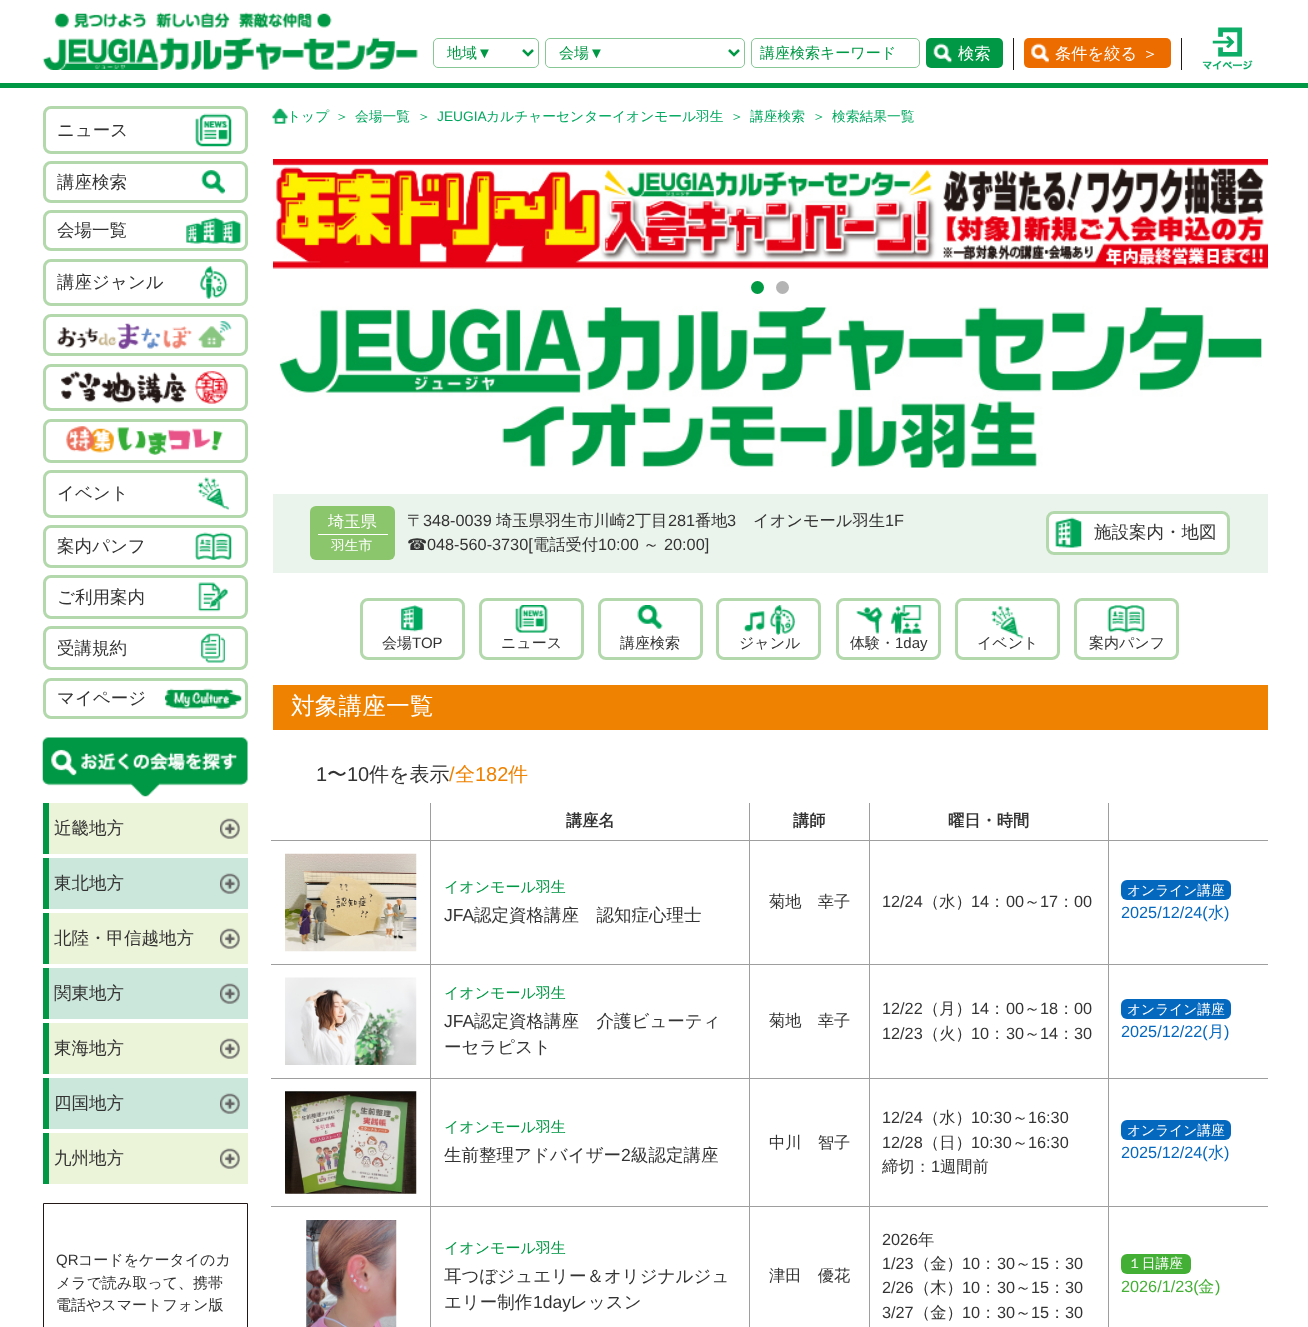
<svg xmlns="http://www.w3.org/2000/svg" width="1308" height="1327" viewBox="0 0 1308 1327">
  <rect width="100%" height="100%" fill="#fff"/>
  <path d="M0 83h1308v5H0z" fill="#009844"/>
  <image x="42" y="12" width="376" height="58" href="img/1.png"/>
  <path d="M1013 38h1v32H1013z" fill="#231815"/>
  <rect x="433.5" y="38.5" width="105" height="29" rx="4.5" fill="none" stroke="#87c796"/>
  <path d="M523 50L528 55L533 50" fill="none" stroke="#009844" stroke-width="2.5"/>
  <rect x="545.5" y="38.5" width="199" height="29" rx="4.5" fill="none" stroke="#87c796"/>
  <path d="M729 50L734 55L739 50" fill="none" stroke="#009844" stroke-width="2.5"/>
  <rect x="751.5" y="38.5" width="168" height="29" rx="4.5" fill="none" stroke="#87c796"/>
  <rect x="926" y="38" width="77" height="30" rx="5" fill="#009844"/>
  <image x="933" y="43" width="19" height="20" href="img/2.png"/>
  <path d="M1181 38h1v32H1181z" fill="#231815"/>
  <rect x="1024" y="38" width="147" height="30" rx="5" fill="#ec6c00"/>
  <image x="1031" y="43" width="18" height="20" href="img/3.png"/>
  <image x="1202" y="27" width="51" height="43" href="img/4.png"/>
  <rect x="44.5" y="107.5" width="202" height="45" rx="6.5" fill="none" stroke="#b2d8ac" stroke-width="3"/>
  <image x="195" y="113" width="37" height="34" href="img/5.png"/>
  <rect x="44.5" y="162.5" width="202" height="39" rx="6.5" fill="none" stroke="#b2d8ac" stroke-width="3"/>
  <image x="201" y="170" width="24" height="24" href="img/6.png"/>
  <rect x="44.5" y="211.5" width="202" height="38" rx="6.5" fill="none" stroke="#b2d8ac" stroke-width="3"/>
  <image x="186" y="217" width="56" height="27" href="img/7.png"/>
  <rect x="44.5" y="260.5" width="202" height="44" rx="6.5" fill="none" stroke="#b2d8ac" stroke-width="3"/>
  <image x="200" y="266" width="28" height="33" href="img/8.png"/>
  <rect x="44.5" y="315.5" width="202" height="39" rx="6.5" fill="none" stroke="#b2d8ac" stroke-width="3"/>
  <image x="57" y="321" width="175" height="28" href="img/9.png"/>
  <rect x="44.5" y="365.5" width="202" height="44" rx="6.5" fill="none" stroke="#b2d8ac" stroke-width="3"/>
  <image x="61" y="371" width="167" height="33" href="img/10.png"/>
  <rect x="44.5" y="420.5" width="202" height="41" rx="6.5" fill="none" stroke="#b2d8ac" stroke-width="3"/>
  <image x="66" y="426" width="157" height="29" href="img/11.png"/>
  <rect x="44.5" y="471.5" width="202" height="45" rx="6.5" fill="none" stroke="#b2d8ac" stroke-width="3"/>
  <image x="197" y="477" width="32" height="33" href="img/12.png"/>
  <rect x="44.5" y="526.5" width="202" height="40" rx="6.5" fill="none" stroke="#b2d8ac" stroke-width="3"/>
  <image x="195" y="532" width="37" height="28" href="img/13.png"/>
  <rect x="44.5" y="576.5" width="202" height="41" rx="6.5" fill="none" stroke="#b2d8ac" stroke-width="3"/>
  <image x="198" y="582" width="30" height="30" href="img/14.png"/>
  <rect x="44.5" y="627.5" width="202" height="41" rx="6.5" fill="none" stroke="#b2d8ac" stroke-width="3"/>
  <image x="201" y="633" width="24" height="30" href="img/15.png"/>
  <rect x="44.5" y="679.5" width="202" height="38" rx="6.5" fill="none" stroke="#b2d8ac" stroke-width="3"/>
  <image x="165" y="688" width="77" height="21" href="img/16.png"/>
  <image x="42" y="737" width="206" height="60" href="img/17.png"/>
  <path d="M49 803h199v51H49z" fill="#ebf3d8"/>
  <image x="220" y="818" width="20" height="21" href="img/18.png"/>
  <path d="M43 803h6v51H43z" fill="#009844"/>
  <path d="M49 858h199v51H49z" fill="#cbe6da"/>
  <image x="220" y="873" width="20" height="21" href="img/19.png"/>
  <path d="M43 858h6v51H43z" fill="#009844"/>
  <path d="M49 913h199v51H49z" fill="#ebf3d8"/>
  <image x="220" y="928" width="20" height="21" href="img/18.png"/>
  <path d="M43 913h6v51H43z" fill="#009844"/>
  <path d="M49 968h199v51H49z" fill="#cbe6da"/>
  <image x="220" y="983" width="20" height="21" href="img/19.png"/>
  <path d="M43 968h6v51H43z" fill="#009844"/>
  <path d="M49 1023h199v51H49z" fill="#ebf3d8"/>
  <image x="220" y="1038" width="20" height="21" href="img/18.png"/>
  <path d="M43 1023h6v51H43z" fill="#009844"/>
  <path d="M49 1078h199v51H49z" fill="#cbe6da"/>
  <image x="220" y="1093" width="20" height="21" href="img/19.png"/>
  <path d="M43 1078h6v51H43z" fill="#009844"/>
  <path d="M49 1133h199v51H49z" fill="#ebf3d8"/>
  <image x="220" y="1148" width="20" height="21" href="img/18.png"/>
  <path d="M43 1133h6v51H43z" fill="#009844"/>
  <path d="M43.5 1203.5h204v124H43.5z" fill="none" stroke="#231815"/>
  <image x="272" y="108" width="16" height="16" href="img/20.png"/>
  <image x="273" y="159" width="995" height="110" href="img/21.png"/>
  <circle cx="757.5" cy="287.5" r="6.5" fill="#094"/>
  <circle cx="782.5" cy="287.5" r="6.5" fill="#b4b4b5"/>
  <image x="279" y="306" width="983" height="162" href="img/22.png"/>
  <path d="M273 494h995v79H273z" fill="#ebf4ec"/>
  <rect x="310" y="506" width="85" height="54" rx="6" fill="#8bc56c"/>
  <path d="M318 534h70v1H318z" fill="#fff"/>
  <rect x="1046" y="511" width="184" height="44" rx="8" fill="#fff"/>
  <image x="1055" y="517" width="27" height="31" href="img/23.png"/>
  <rect x="1047.5" y="512.5" width="181" height="41" rx="6.5" fill="none" stroke="#b2d8ac" stroke-width="3"/>
  <image x="401" y="605" width="22" height="27" href="img/24.png"/>
  <rect x="361.5" y="599.5" width="102" height="59" rx="6.5" fill="none" stroke="#b2d8ac" stroke-width="3"/>
  <image x="515" y="605" width="33" height="28" href="img/25.png"/>
  <rect x="480.5" y="599.5" width="102" height="59" rx="6.5" fill="none" stroke="#b2d8ac" stroke-width="3"/>
  <image x="637" y="605" width="26" height="24" href="img/26.png"/>
  <rect x="599.5" y="599.5" width="102" height="59" rx="6.5" fill="none" stroke="#b2d8ac" stroke-width="3"/>
  <image x="743" y="605" width="52" height="30" href="img/27.png"/>
  <rect x="717.5" y="599.5" width="102" height="59" rx="6.5" fill="none" stroke="#b2d8ac" stroke-width="3"/>
  <image x="856" y="605" width="66" height="29" href="img/28.png"/>
  <rect x="837.5" y="599.5" width="102" height="59" rx="6.5" fill="none" stroke="#b2d8ac" stroke-width="3"/>
  <image x="991" y="605" width="33" height="34" href="img/29.png"/>
  <rect x="956.5" y="599.5" width="102" height="59" rx="6.5" fill="none" stroke="#b2d8ac" stroke-width="3"/>
  <image x="1107" y="605" width="38" height="28" href="img/30.png"/>
  <rect x="1075.5" y="599.5" width="102" height="59" rx="6.5" fill="none" stroke="#b2d8ac" stroke-width="3"/>
  <path d="M273 685h995v45H273z" fill="#ef8200"/>
  <path d="M1108 1206h1v121H1108z" fill="#9e9e9f"/>
  <path d="M1108 1206h160v1H1108z" fill="#9e9e9f"/>
  <path d="M1108 1078h1v130H1108z" fill="#9e9e9f"/>
  <path d="M1108 1078h160v1H1108z" fill="#9e9e9f"/>
  <path d="M1108 964h1v115H1108z" fill="#9e9e9f"/>
  <path d="M1108 964h160v1H1108z" fill="#9e9e9f"/>
  <path d="M1108 840h1v125H1108z" fill="#9e9e9f"/>
  <path d="M1108 840h160v1H1108z" fill="#9e9e9f"/>
  <path d="M1108 803h1v38H1108z" fill="#9e9e9f"/>
  <path d="M869 1206h1v121H869z" fill="#9e9e9f"/>
  <path d="M869 1206h240v1H869z" fill="#9e9e9f"/>
  <path d="M869 1078h1v130H869z" fill="#9e9e9f"/>
  <path d="M869 1078h240v1H869z" fill="#9e9e9f"/>
  <path d="M869 964h1v115H869z" fill="#9e9e9f"/>
  <path d="M869 964h240v1H869z" fill="#9e9e9f"/>
  <path d="M869 840h1v125H869z" fill="#9e9e9f"/>
  <path d="M869 840h240v1H869z" fill="#9e9e9f"/>
  <path d="M869 803h1v38H869z" fill="#9e9e9f"/>
  <path d="M749 1206h1v121H749z" fill="#9e9e9f"/>
  <path d="M749 1206h121v1H749z" fill="#9e9e9f"/>
  <path d="M749 1078h1v130H749z" fill="#9e9e9f"/>
  <path d="M749 1078h121v1H749z" fill="#9e9e9f"/>
  <path d="M749 964h1v115H749z" fill="#9e9e9f"/>
  <path d="M749 964h121v1H749z" fill="#9e9e9f"/>
  <path d="M749 840h1v125H749z" fill="#9e9e9f"/>
  <path d="M749 840h121v1H749z" fill="#9e9e9f"/>
  <path d="M749 803h1v38H749z" fill="#9e9e9f"/>
  <path d="M430 1206h1v121H430z" fill="#9e9e9f"/>
  <path d="M430 1206h320v1H430z" fill="#9e9e9f"/>
  <path d="M430 1078h1v130H430z" fill="#9e9e9f"/>
  <path d="M430 1078h320v1H430z" fill="#9e9e9f"/>
  <path d="M430 964h1v115H430z" fill="#9e9e9f"/>
  <path d="M430 964h320v1H430z" fill="#9e9e9f"/>
  <path d="M430 840h1v125H430z" fill="#9e9e9f"/>
  <path d="M430 840h320v1H430z" fill="#9e9e9f"/>
  <path d="M430 803h1v38H430z" fill="#9e9e9f"/>
  <path d="M271 840h160v1H271z" fill="#9e9e9f"/>
  <path d="M271 964h160v1H271z" fill="#9e9e9f"/>
  <image x="285" y="853" width="132" height="99" href="img/31.png"/>
  <rect x="1121" y="880" width="110" height="20" rx="6" fill="#0468bf"/>
  <path d="M271 1078h160v1H271z" fill="#9e9e9f"/>
  <image x="285" y="977" width="132" height="88" href="img/32.png"/>
  <rect x="1121" y="999" width="110" height="20" rx="6" fill="#0468bf"/>
  <path d="M271 1206h160v1H271z" fill="#9e9e9f"/>
  <image x="285" y="1091" width="132" height="103" href="img/33.png"/>
  <rect x="1121" y="1120" width="110" height="20" rx="6" fill="#0468bf"/>
  <image x="306" y="1220" width="91" height="107" href="img/34.png"/>
  <rect x="1121" y="1254" width="70" height="20" rx="6" fill="#44af35"/>
  <text x="447" y="58" font-family="WenQuanYi Zen Hei" font-size="15" font-weight="500" fill="#009844">地域</text>
  <text x="477" y="58" font-family="Liberation Sans" font-size="15" fill="#009844">▼</text>
  <text x="559" y="58" font-family="WenQuanYi Zen Hei" font-size="15" font-weight="500" fill="#009844">会場</text>
  <text x="589" y="58" font-family="Liberation Sans" font-size="15" fill="#009844">▼</text>
  <text x="760" y="58" font-family="WenQuanYi Zen Hei" font-size="15" font-weight="500" fill="#009844">講座検索キーワード</text>
  <g font-family="WenQuanYi Zen Hei" font-size="16.25" font-weight="500" fill="#fff">
    <text x="958" y="59">検索</text>
    <text x="1055" y="59">条件を絞る ＞</text>
  </g>
  <g font-family="WenQuanYi Zen Hei" font-size="17.5" font-weight="500" fill="#333">
    <text x="57" y="136">ニュース</text>
    <text x="57" y="188">講座検索</text>
    <text x="57" y="236">会場一覧</text>
    <text x="57" y="288">講座ジャンル</text>
    <text x="57" y="499">イベント</text>
    <text x="57" y="552">案内パンフ</text>
    <text x="57" y="603">ご利用案内</text>
    <text x="57" y="654">受講規約</text>
    <text x="57" y="704">マイページ</text>
    <text x="54" y="834">近畿地方</text>
    <text x="54" y="889">東北地方</text>
    <text x="54" y="944">北陸・甲信越地方</text>
    <text x="54" y="999">関東地方</text>
    <text x="54" y="1054">東海地方</text>
    <text x="54" y="1109">四国地方</text>
    <text x="54" y="1164">九州地方</text>
  </g>
  <text x="56" y="1265" font-family="Liberation Sans" font-size="15" fill="#333">QR</text>
  <g font-family="WenQuanYi Zen Hei" font-size="15" font-weight="500" fill="#333">
    <text x="78" y="1265">コードをケータイのカ</text>
    <text x="56" y="1288">メラで読み取って、携帯</text>
    <text x="56" y="1310">電話やスマートフォン版</text>
  </g>
  <g font-family="WenQuanYi Zen Hei" font-size="13.75" font-weight="500" fill="#00a85f">
    <text x="287" y="121">トップ</text>
    <text x="335" y="121">＞</text>
    <text x="355" y="121">会場一覧</text>
    <text x="417" y="121">＞</text>
  </g>
  <text x="437" y="121" font-family="Liberation Sans" font-size="13.75" fill="#00a85f">JEUGIA</text>
  <g font-family="WenQuanYi Zen Hei" font-size="13.75" font-weight="500" fill="#00a85f">
    <text x="486" y="121">カルチャーセンターイオンモール羽生</text>
    <text x="730" y="121">＞</text>
    <text x="750" y="121">講座検索</text>
    <text x="812" y="121">＞</text>
    <text x="832" y="121">検索結果一覧</text>
  </g>
  <text x="328" y="527" font-family="WenQuanYi Zen Hei" font-size="16.25" font-weight="500" fill="#fff">埼玉県</text>
  <text x="331" y="550" font-family="WenQuanYi Zen Hei" font-size="13.75" font-weight="500" fill="#fff">羽生市</text>
  <text x="407" y="526" font-family="WenQuanYi Zen Hei" font-size="16.25" font-weight="500" fill="#333">〒</text>
  <text x="423" y="526" font-family="Liberation Sans" font-size="16.25" fill="#333">348-0039</text>
  <text x="496" y="526" font-family="WenQuanYi Zen Hei" font-size="16.25" font-weight="500" fill="#333">埼玉県羽生市川崎</text>
  <text x="626" y="526" font-family="Liberation Sans" font-size="16.25" fill="#333">2</text>
  <text x="635" y="526" font-family="WenQuanYi Zen Hei" font-size="16.25" font-weight="500" fill="#333">丁目</text>
  <text x="668" y="526" font-family="Liberation Sans" font-size="16.25" fill="#333">281</text>
  <text x="695" y="526" font-family="WenQuanYi Zen Hei" font-size="16.25" font-weight="500" fill="#333">番地</text>
  <text x="727" y="526" font-family="Liberation Sans" font-size="16.25" fill="#333">3</text>
  <text x="753" y="526" font-family="WenQuanYi Zen Hei" font-size="16.25" font-weight="500" fill="#333">イオンモール羽生</text>
  <text x="885" y="526" font-family="Liberation Sans" font-size="16.25" fill="#333">1F</text>
  <text x="407" y="550" font-family="DejaVu Sans" font-size="16.25" fill="#333">☎︎</text>
  <text x="427" y="550" font-family="Liberation Sans" font-size="16.25" fill="#333">048-560-3730[</text>
  <text x="533" y="550" font-family="WenQuanYi Zen Hei" font-size="16.25" font-weight="500" fill="#333">電話受付</text>
  <text x="598" y="550" font-family="Liberation Sans" font-size="16.25" fill="#333">10:00</text>
  <text x="643" y="550" font-family="WenQuanYi Zen Hei" font-size="16.25" font-weight="500" fill="#333">～</text>
  <text x="664" y="550" font-family="Liberation Sans" font-size="16.25" fill="#333">20:00]</text>
  <text x="1094" y="538" font-family="WenQuanYi Zen Hei" font-size="17.5" font-weight="500" fill="#333">施設案内・地図</text>
  <text x="382" y="648" font-family="WenQuanYi Zen Hei" font-size="15" font-weight="500" fill="#333">会場</text>
  <text x="412" y="648" font-family="Liberation Sans" font-size="15" fill="#333">TOP</text>
  <g font-family="WenQuanYi Zen Hei" font-size="15" font-weight="500" fill="#333">
    <text x="501" y="648">ニュース</text>
    <text x="620" y="648">講座検索</text>
    <text x="739" y="648">ジャンル</text>
    <text x="850" y="648">体験・</text>
  </g>
  <text x="895" y="648" font-family="Liberation Sans" font-size="15" fill="#333">1day</text>
  <g font-family="WenQuanYi Zen Hei" font-size="15" font-weight="500" fill="#333">
    <text x="977" y="648">イベント</text>
    <text x="1089" y="648">案内パンフ</text>
  </g>
  <text x="291" y="714" font-family="WenQuanYi Zen Hei" font-size="23.75" font-weight="500" fill="#fff">対象講座一覧</text>
  <text x="316" y="781" font-family="Liberation Sans" font-size="20" fill="#333">1</text>
  <text x="327" y="781" font-family="WenQuanYi Zen Hei" font-size="20" font-weight="500" fill="#333">〜</text>
  <text x="347" y="781" font-family="Liberation Sans" font-size="20" fill="#333">10</text>
  <text x="369" y="781" font-family="WenQuanYi Zen Hei" font-size="20" font-weight="500" fill="#333">件を表示</text>
  <text x="449" y="781" font-family="Liberation Sans" font-size="20" fill="#ef8200">/</text>
  <text x="455" y="781" font-family="WenQuanYi Zen Hei" font-size="20" font-weight="500" fill="#ef8200">全</text>
  <text x="475" y="781" font-family="Liberation Sans" font-size="20" fill="#ef8200">182</text>
  <text x="508" y="781" font-family="WenQuanYi Zen Hei" font-size="20" font-weight="500" fill="#ef8200">件</text>
  <g font-family="WenQuanYi Zen Hei" font-size="16.25" font-weight="bold" fill="#333">
    <text x="566" y="826">講座名</text>
    <text x="793" y="826">講師</text>
    <text x="948" y="826">曜日・時間</text>
  </g>
  <text x="444" y="892" font-family="WenQuanYi Zen Hei" font-size="15" font-weight="500" fill="#009844">イオンモール羽生</text>
  <text x="444" y="921" font-family="Liberation Sans" font-size="17.5" fill="#333">JFA</text>
  <text x="474" y="921" font-family="WenQuanYi Zen Hei" font-size="17.5" font-weight="500" fill="#333">認定資格講座　認知症心理士</text>
  <text x="769" y="907" font-family="WenQuanYi Zen Hei" font-size="16.25" font-weight="500" fill="#333">菊地　幸子</text>
  <text x="882" y="907" font-family="Liberation Sans" font-size="16.25" fill="#333">12/24</text>
  <text x="923" y="907" font-family="WenQuanYi Zen Hei" font-size="16.25" font-weight="500" fill="#333">（水）</text>
  <text x="971" y="907" font-family="Liberation Sans" font-size="16.25" fill="#333">14</text>
  <text x="989" y="907" font-family="WenQuanYi Zen Hei" font-size="16.25" font-weight="500" fill="#333">：</text>
  <text x="1006" y="907" font-family="Liberation Sans" font-size="16.25" fill="#333">00</text>
  <text x="1024" y="907" font-family="WenQuanYi Zen Hei" font-size="16.25" font-weight="500" fill="#333">～</text>
  <text x="1040" y="907" font-family="Liberation Sans" font-size="16.25" fill="#333">17</text>
  <text x="1058" y="907" font-family="WenQuanYi Zen Hei" font-size="16.25" font-weight="500" fill="#333">：</text>
  <text x="1074" y="907" font-family="Liberation Sans" font-size="16.25" fill="#333">00</text>
  <text x="1127" y="895" font-family="WenQuanYi Zen Hei" font-size="13.75" font-weight="500" fill="#fff">オンライン講座</text>
  <text x="1121" y="918" font-family="Liberation Sans" font-size="16.25" fill="#0468bf">2025/12/24(</text>
  <text x="1208" y="918" font-family="WenQuanYi Zen Hei" font-size="16.25" font-weight="500" fill="#0468bf">水</text>
  <text x="1224" y="918" font-family="Liberation Sans" font-size="16.25" fill="#0468bf">)</text>
  <text x="444" y="998" font-family="WenQuanYi Zen Hei" font-size="15" font-weight="500" fill="#009844">イオンモール羽生</text>
  <text x="444" y="1027" font-family="Liberation Sans" font-size="17.5" fill="#333">JFA</text>
  <g font-family="WenQuanYi Zen Hei" font-size="17.5" font-weight="500" fill="#333">
    <text x="474" y="1027">認定資格講座　介護ビューティ</text>
    <text x="444" y="1053">ーセラピスト</text>
  </g>
  <text x="769" y="1026" font-family="WenQuanYi Zen Hei" font-size="16.25" font-weight="500" fill="#333">菊地　幸子</text>
  <text x="882" y="1014" font-family="Liberation Sans" font-size="16.25" fill="#333">12/22</text>
  <text x="923" y="1014" font-family="WenQuanYi Zen Hei" font-size="16.25" font-weight="500" fill="#333">（月）</text>
  <text x="971" y="1014" font-family="Liberation Sans" font-size="16.25" fill="#333">14</text>
  <text x="989" y="1014" font-family="WenQuanYi Zen Hei" font-size="16.25" font-weight="500" fill="#333">：</text>
  <text x="1006" y="1014" font-family="Liberation Sans" font-size="16.25" fill="#333">00</text>
  <text x="1024" y="1014" font-family="WenQuanYi Zen Hei" font-size="16.25" font-weight="500" fill="#333">～</text>
  <text x="1040" y="1014" font-family="Liberation Sans" font-size="16.25" fill="#333">18</text>
  <text x="1058" y="1014" font-family="WenQuanYi Zen Hei" font-size="16.25" font-weight="500" fill="#333">：</text>
  <g font-family="Liberation Sans" font-size="16.25" fill="#333">
    <text x="1074" y="1014">00</text>
    <text x="882" y="1039">12/23</text>
  </g>
  <text x="923" y="1039" font-family="WenQuanYi Zen Hei" font-size="16.25" font-weight="500" fill="#333">（火）</text>
  <text x="971" y="1039" font-family="Liberation Sans" font-size="16.25" fill="#333">10</text>
  <text x="989" y="1039" font-family="WenQuanYi Zen Hei" font-size="16.25" font-weight="500" fill="#333">：</text>
  <text x="1006" y="1039" font-family="Liberation Sans" font-size="16.25" fill="#333">30</text>
  <text x="1024" y="1039" font-family="WenQuanYi Zen Hei" font-size="16.25" font-weight="500" fill="#333">～</text>
  <text x="1040" y="1039" font-family="Liberation Sans" font-size="16.25" fill="#333">14</text>
  <text x="1058" y="1039" font-family="WenQuanYi Zen Hei" font-size="16.25" font-weight="500" fill="#333">：</text>
  <text x="1074" y="1039" font-family="Liberation Sans" font-size="16.25" fill="#333">30</text>
  <text x="1127" y="1014" font-family="WenQuanYi Zen Hei" font-size="13.75" font-weight="500" fill="#fff">オンライン講座</text>
  <text x="1121" y="1037" font-family="Liberation Sans" font-size="16.25" fill="#0468bf">2025/12/22(</text>
  <text x="1208" y="1037" font-family="WenQuanYi Zen Hei" font-size="16.25" font-weight="500" fill="#0468bf">月</text>
  <text x="1224" y="1037" font-family="Liberation Sans" font-size="16.25" fill="#0468bf">)</text>
  <text x="444" y="1132" font-family="WenQuanYi Zen Hei" font-size="15" font-weight="500" fill="#009844">イオンモール羽生</text>
  <text x="444" y="1161" font-family="WenQuanYi Zen Hei" font-size="17.5" font-weight="500" fill="#333">生前整理アドバイザー</text>
  <text x="621" y="1161" font-family="Liberation Sans" font-size="17.5" fill="#333">2</text>
  <text x="631" y="1161" font-family="WenQuanYi Zen Hei" font-size="17.5" font-weight="500" fill="#333">級認定講座</text>
  <text x="769" y="1148" font-family="WenQuanYi Zen Hei" font-size="16.25" font-weight="500" fill="#333">中川　智子</text>
  <text x="882" y="1123" font-family="Liberation Sans" font-size="16.25" fill="#333">12/24</text>
  <text x="923" y="1123" font-family="WenQuanYi Zen Hei" font-size="16.25" font-weight="500" fill="#333">（水）</text>
  <text x="971" y="1123" font-family="Liberation Sans" font-size="16.25" fill="#333">10:30</text>
  <text x="1012" y="1123" font-family="WenQuanYi Zen Hei" font-size="16.25" font-weight="500" fill="#333">～</text>
  <g font-family="Liberation Sans" font-size="16.25" fill="#333">
    <text x="1028" y="1123">16:30</text>
    <text x="882" y="1148">12/28</text>
  </g>
  <text x="923" y="1148" font-family="WenQuanYi Zen Hei" font-size="16.25" font-weight="500" fill="#333">（日）</text>
  <text x="971" y="1148" font-family="Liberation Sans" font-size="16.25" fill="#333">10:30</text>
  <text x="1012" y="1148" font-family="WenQuanYi Zen Hei" font-size="16.25" font-weight="500" fill="#333">～</text>
  <text x="1028" y="1148" font-family="Liberation Sans" font-size="16.25" fill="#333">16:30</text>
  <text x="882" y="1172" font-family="WenQuanYi Zen Hei" font-size="16.25" font-weight="500" fill="#333">締切：</text>
  <text x="931" y="1172" font-family="Liberation Sans" font-size="16.25" fill="#333">1</text>
  <text x="940" y="1172" font-family="WenQuanYi Zen Hei" font-size="16.25" font-weight="500" fill="#333">週間前</text>
  <text x="1127" y="1135" font-family="WenQuanYi Zen Hei" font-size="13.75" font-weight="500" fill="#fff">オンライン講座</text>
  <text x="1121" y="1158" font-family="Liberation Sans" font-size="16.25" fill="#0468bf">2025/12/24(</text>
  <text x="1208" y="1158" font-family="WenQuanYi Zen Hei" font-size="16.25" font-weight="500" fill="#0468bf">水</text>
  <text x="1224" y="1158" font-family="Liberation Sans" font-size="16.25" fill="#0468bf">)</text>
  <text x="444" y="1253" font-family="WenQuanYi Zen Hei" font-size="15" font-weight="500" fill="#009844">イオンモール羽生</text>
  <g font-family="WenQuanYi Zen Hei" font-size="17.5" font-weight="500" fill="#333">
    <text x="444" y="1282">耳つぼジュエリー＆オリジナルジュ</text>
    <text x="444" y="1308">エリー制作</text>
  </g>
  <text x="533" y="1308" font-family="Liberation Sans" font-size="17.5" fill="#333">1day</text>
  <text x="570" y="1308" font-family="WenQuanYi Zen Hei" font-size="17.5" font-weight="500" fill="#333">レッスン</text>
  <text x="769" y="1281" font-family="WenQuanYi Zen Hei" font-size="16.25" font-weight="500" fill="#333">津田　優花</text>
  <text x="882" y="1245" font-family="Liberation Sans" font-size="16.25" fill="#333">2026</text>
  <text x="918" y="1245" font-family="WenQuanYi Zen Hei" font-size="16.25" font-weight="500" fill="#333">年</text>
  <text x="882" y="1269" font-family="Liberation Sans" font-size="16.25" fill="#333">1/23</text>
  <text x="914" y="1269" font-family="WenQuanYi Zen Hei" font-size="16.25" font-weight="500" fill="#333">（金）</text>
  <text x="962" y="1269" font-family="Liberation Sans" font-size="16.25" fill="#333">10</text>
  <text x="980" y="1269" font-family="WenQuanYi Zen Hei" font-size="16.25" font-weight="500" fill="#333">：</text>
  <text x="997" y="1269" font-family="Liberation Sans" font-size="16.25" fill="#333">30</text>
  <text x="1015" y="1269" font-family="WenQuanYi Zen Hei" font-size="16.25" font-weight="500" fill="#333">～</text>
  <text x="1031" y="1269" font-family="Liberation Sans" font-size="16.25" fill="#333">15</text>
  <text x="1049" y="1269" font-family="WenQuanYi Zen Hei" font-size="16.25" font-weight="500" fill="#333">：</text>
  <g font-family="Liberation Sans" font-size="16.25" fill="#333">
    <text x="1065" y="1269">30</text>
    <text x="882" y="1293">2/26</text>
  </g>
  <text x="914" y="1293" font-family="WenQuanYi Zen Hei" font-size="16.25" font-weight="500" fill="#333">（木）</text>
  <text x="962" y="1293" font-family="Liberation Sans" font-size="16.25" fill="#333">10</text>
  <text x="980" y="1293" font-family="WenQuanYi Zen Hei" font-size="16.25" font-weight="500" fill="#333">：</text>
  <text x="997" y="1293" font-family="Liberation Sans" font-size="16.25" fill="#333">30</text>
  <text x="1015" y="1293" font-family="WenQuanYi Zen Hei" font-size="16.25" font-weight="500" fill="#333">～</text>
  <text x="1031" y="1293" font-family="Liberation Sans" font-size="16.25" fill="#333">15</text>
  <text x="1049" y="1293" font-family="WenQuanYi Zen Hei" font-size="16.25" font-weight="500" fill="#333">：</text>
  <g font-family="Liberation Sans" font-size="16.25" fill="#333">
    <text x="1065" y="1293">30</text>
    <text x="882" y="1318">3/27</text>
  </g>
  <text x="914" y="1318" font-family="WenQuanYi Zen Hei" font-size="16.25" font-weight="500" fill="#333">（金）</text>
  <text x="962" y="1318" font-family="Liberation Sans" font-size="16.25" fill="#333">10</text>
  <text x="980" y="1318" font-family="WenQuanYi Zen Hei" font-size="16.25" font-weight="500" fill="#333">：</text>
  <text x="997" y="1318" font-family="Liberation Sans" font-size="16.25" fill="#333">30</text>
  <text x="1015" y="1318" font-family="WenQuanYi Zen Hei" font-size="16.25" font-weight="500" fill="#333">～</text>
  <text x="1031" y="1318" font-family="Liberation Sans" font-size="16.25" fill="#333">15</text>
  <text x="1049" y="1318" font-family="WenQuanYi Zen Hei" font-size="16.25" font-weight="500" fill="#333">：</text>
  <text x="1065" y="1318" font-family="Liberation Sans" font-size="16.25" fill="#333">30</text>
  <text x="1128" y="1268" font-family="WenQuanYi Zen Hei" font-size="13.75" font-weight="500" fill="#fff">１日講座</text>
  <text x="1121" y="1292" font-family="Liberation Sans" font-size="16.25" fill="#44af35">2026/1/23(</text>
  <text x="1198" y="1292" font-family="WenQuanYi Zen Hei" font-size="16.25" font-weight="500" fill="#44af35">金</text>
  <text x="1215" y="1292" font-family="Liberation Sans" font-size="16.25" fill="#44af35">)</text>
</svg>
